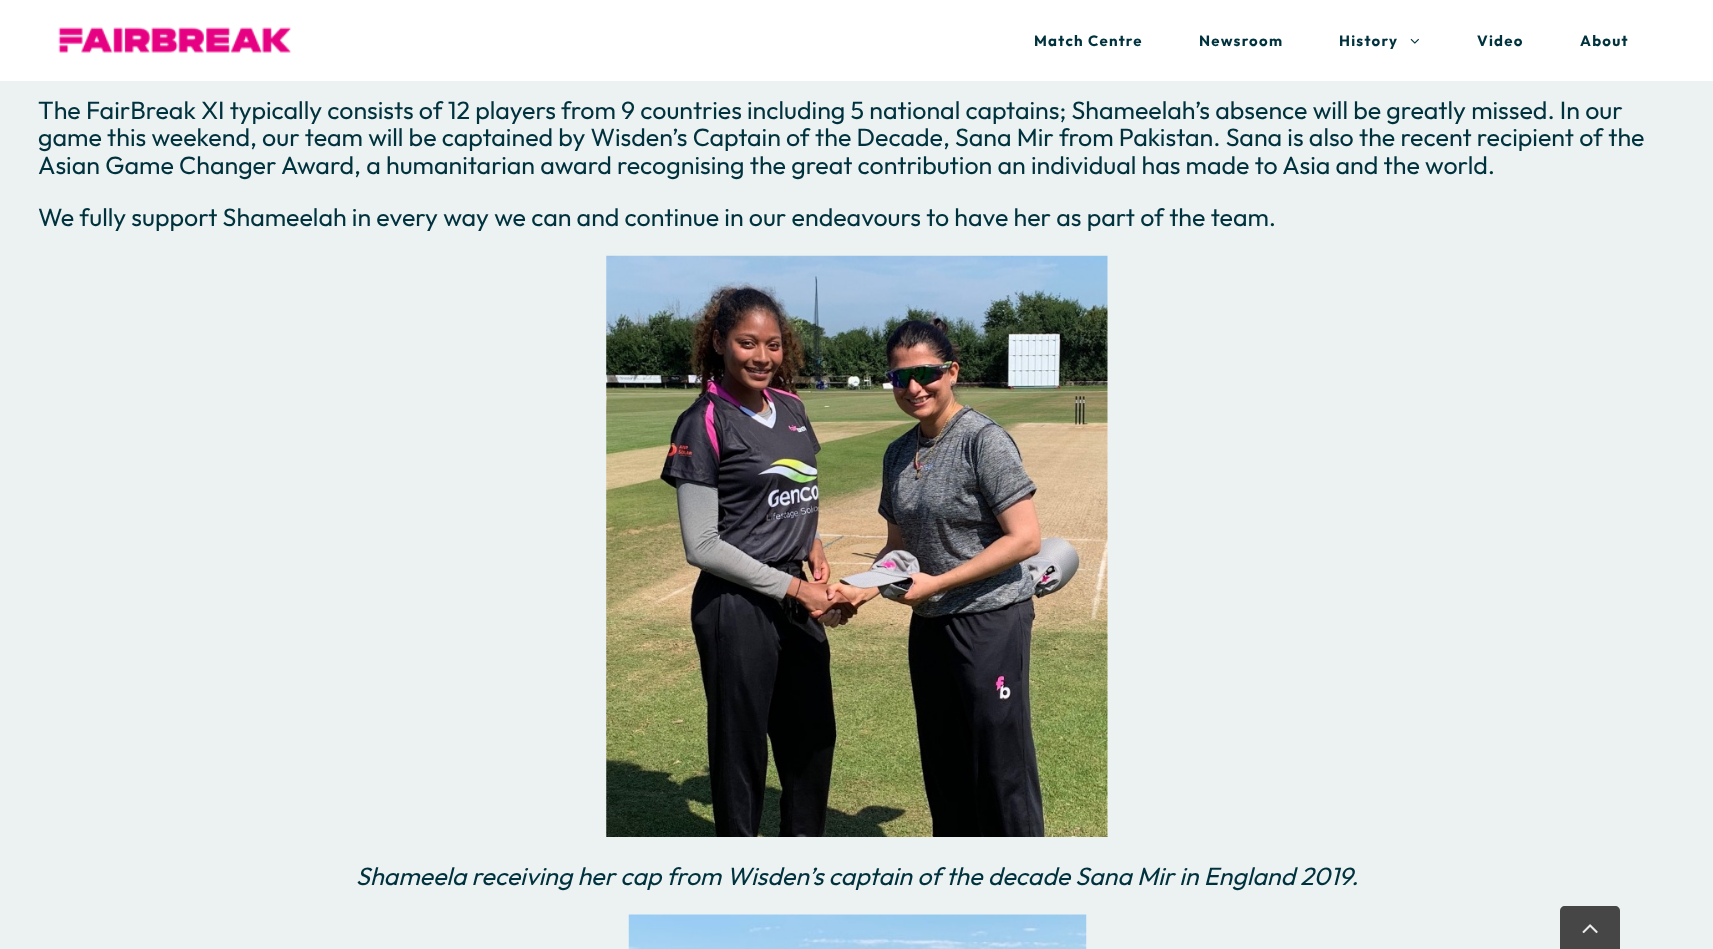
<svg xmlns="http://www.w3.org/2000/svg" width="1713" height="949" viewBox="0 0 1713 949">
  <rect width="100%" height="100%" fill="#ecf2f2"/>
  <path d="M0 0h1713v81H0z" fill="#fff"/>
  <image x="58" y="27" width="234" height="26" href="img/1.png"/>
  <image x="1410" y="38" width="9" height="6" href="img/2.png"/>
  <image x="606" y="255" width="502" height="582" href="img/3.png"/>
  <image x="628" y="914" width="459" height="35" href="img/4.png"/>
  <path d="M1565 906H1615C1618 906 1620 908 1620 911V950H1560V911C1560 908 1562 906 1565 906Z" fill="#464646"/>
  <image x="1582" y="924" width="16" height="10" href="img/5.png"/>
  <g font-family="Outfit" font-size="15" font-weight="bold" letter-spacing="1.25" fill="#00323e">
    <text x="1034" y="46">Match Centre</text>
    <text x="1199" y="46">Newsroom</text>
    <text x="1339" y="46">History</text>
    <text x="1477" y="46">Video</text>
    <text x="1580" y="46">About</text>
  </g>
  <g font-family="Outfit" font-size="25" fill="#00323e">
    <text x="38" y="119">The FairBreak XI typically consists of 12 players from 9 countries including 5 national captains; Shameelah’s absence will be greatly missed. In our</text>
    <text x="38" y="146">game this weekend, our team will be captained by Wisden’s Captain of the Decade, Sana Mir from Pakistan. Sana is also the recent recipient of the</text>
    <text x="38" y="174">Asian Game Changer Award, a humanitarian award recognising the great contribution an individual has made to Asia and the world.</text>
    <text x="38" y="226">We fully support Shameelah in every way we can and continue in our endeavours to have her as part of the team.</text>
  </g>
  <text x="356" y="885" font-family="Outfit" font-size="25" font-style="italic" fill="#00323e">Shameela receiving her cap from Wisden’s captain of the decade Sana Mir in England 2019.</text>
</svg>
